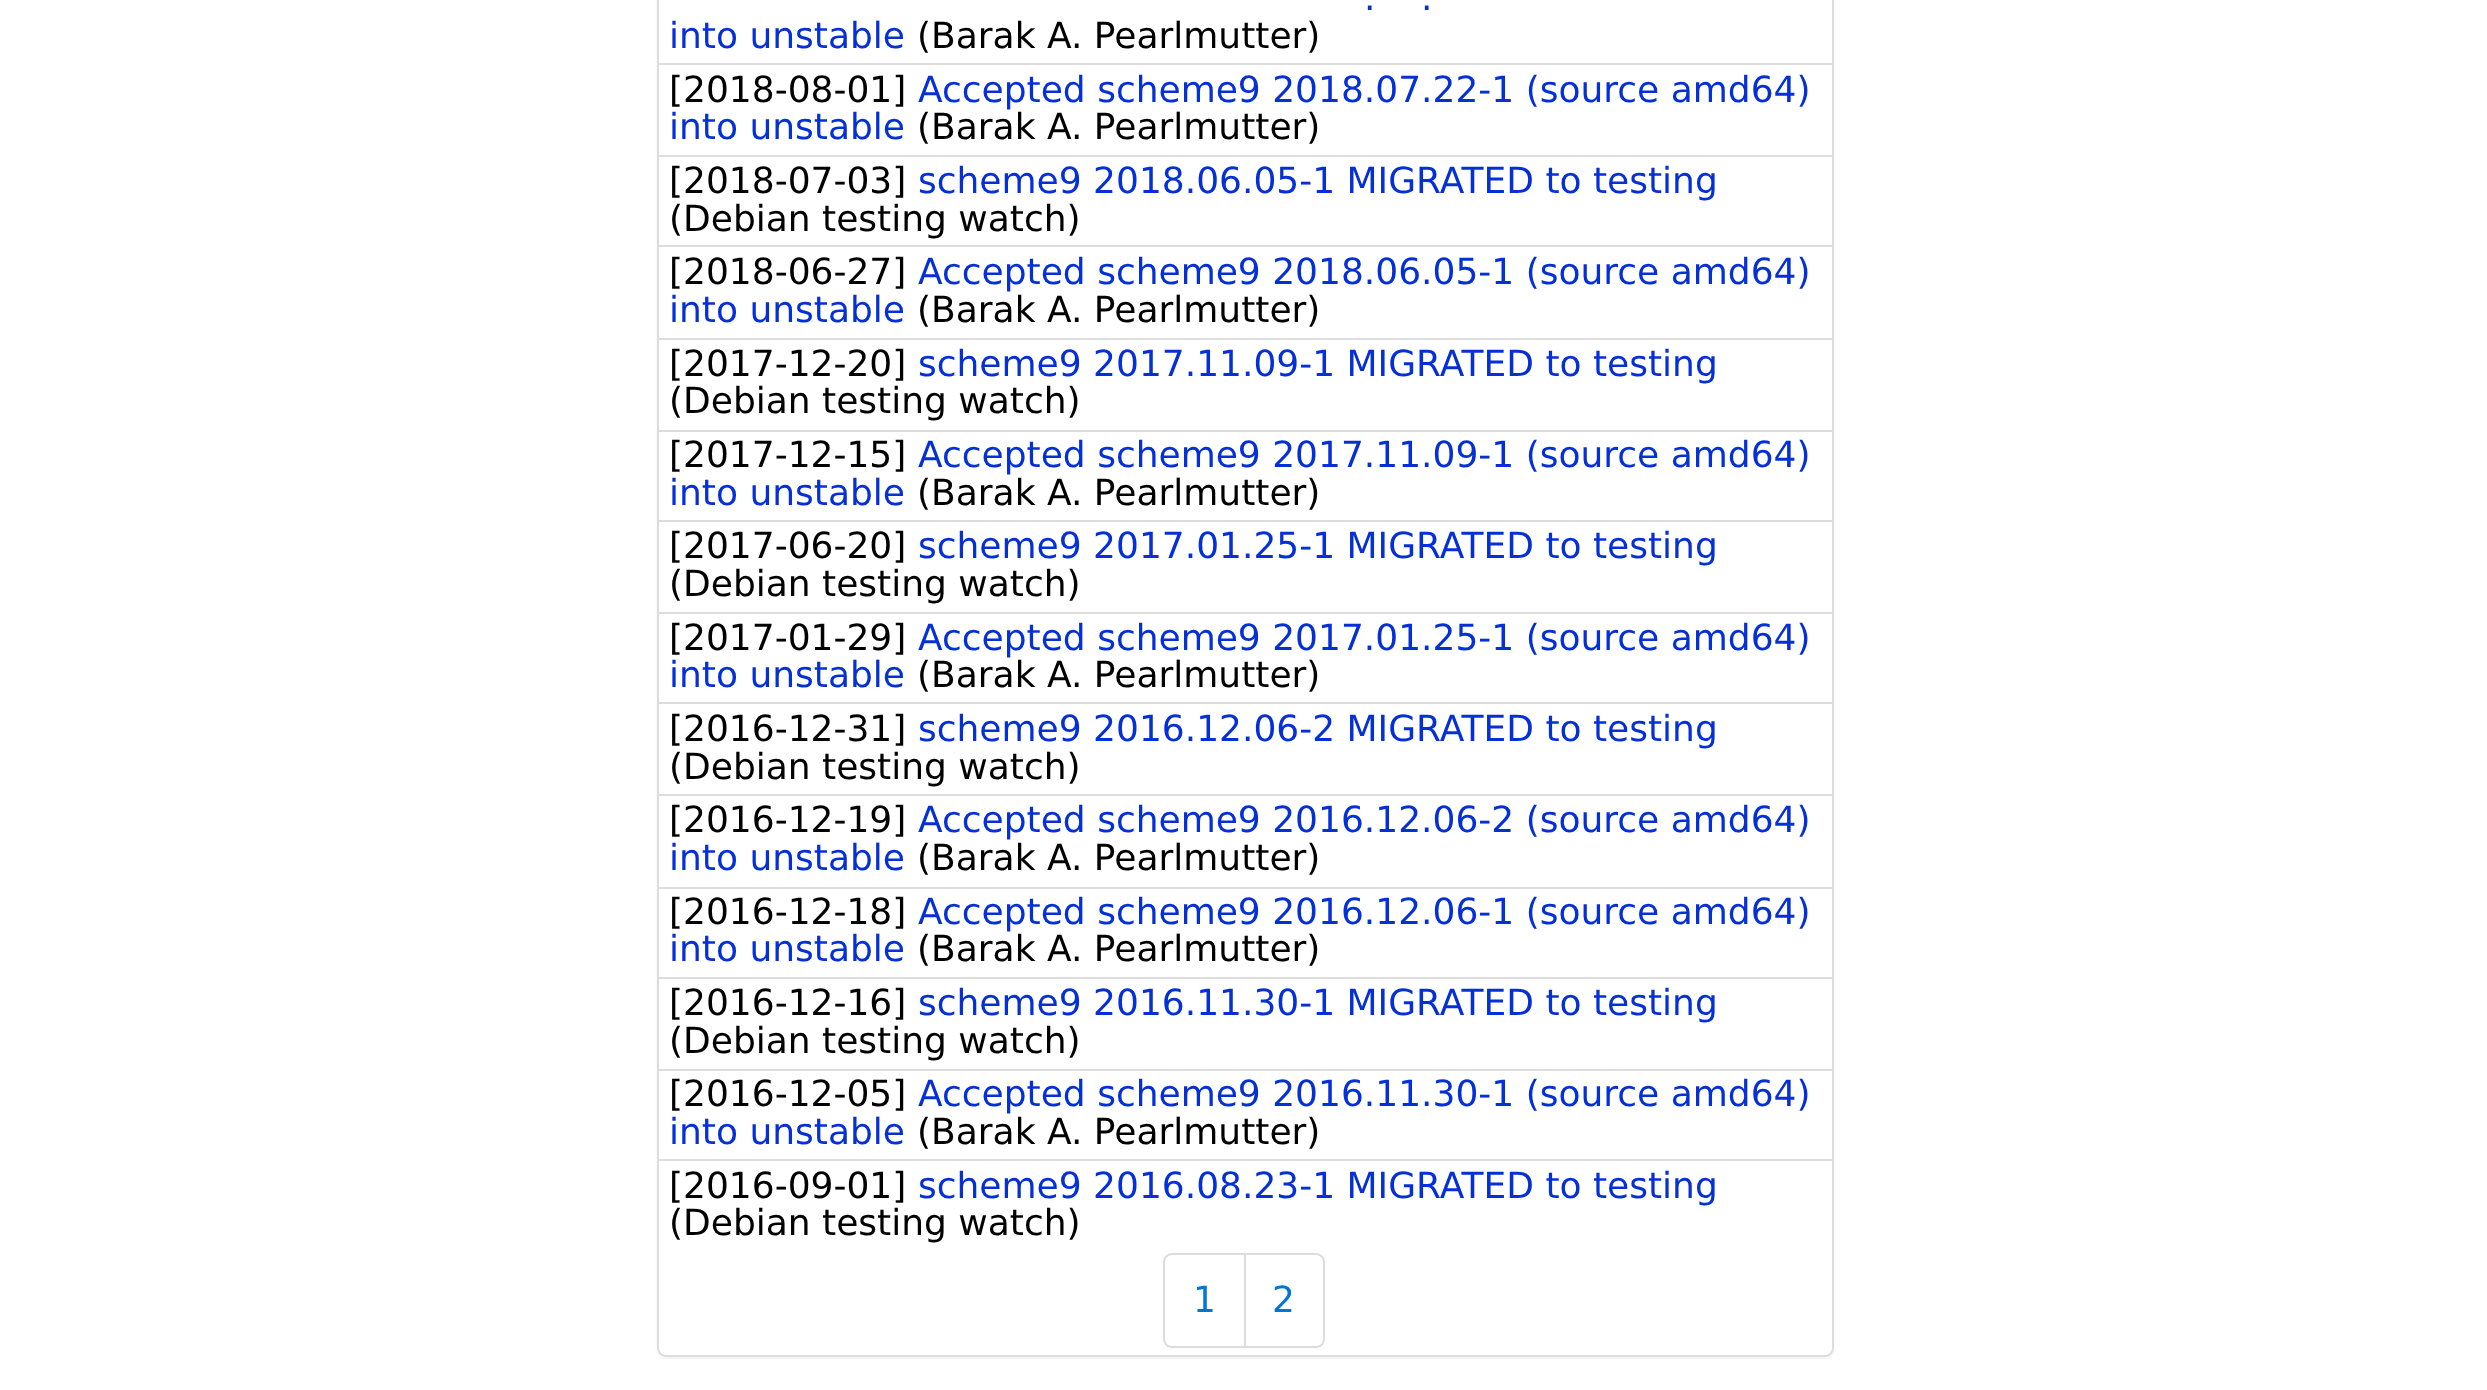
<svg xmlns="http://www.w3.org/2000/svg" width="2487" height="1390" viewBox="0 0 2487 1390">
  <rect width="100%" height="100%" fill="#fff"/>
  <rect x="657" y="-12" width="1177" height="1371" rx="9" fill="#0000000d" filter="blur(1px)"/>
  <rect x="658" y="-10" width="1175" height="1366" rx="8" fill="#fff" stroke="#ddd" stroke-width="2"/>
  <path d="M659 63h1173v2H659z" fill="#ddd"/>
  <path d="M659 155h1173v2H659z" fill="#ddd"/>
  <path d="M659 245h1173v2H659z" fill="#ddd"/>
  <path d="M659 338h1173v2H659z" fill="#ddd"/>
  <path d="M659 430h1173v2H659z" fill="#ddd"/>
  <path d="M659 520h1173v2H659z" fill="#ddd"/>
  <path d="M659 612h1173v2H659z" fill="#ddd"/>
  <path d="M659 702h1173v2H659z" fill="#ddd"/>
  <path d="M659 794h1173v2H659z" fill="#ddd"/>
  <path d="M659 887h1173v2H659z" fill="#ddd"/>
  <path d="M659 977h1173v2H659z" fill="#ddd"/>
  <path d="M659 1069h1173v2H659z" fill="#ddd"/>
  <path d="M659 1159h1173v2H659z" fill="#ddd"/>
  <path d="M1172 1254H1246V1347H1172C1167.5 1347 1164 1343.5 1164 1339V1262C1164 1257.5 1167.5 1254 1172 1254Z" fill="none" stroke="#ddd" stroke-width="2"/>
  <path d="M1245 1254H1316C1320.5 1254 1324 1257.5 1324 1262V1339C1324 1343.5 1320.5 1347 1316 1347H1245Z" fill="#fff" stroke="#ddd" stroke-width="2"/>
  <g font-family="DejaVu Sans" font-size="36" fill="#0530d7">
    <text x="1364" y="10">.</text>
    <text x="1421" y="10">.</text>
    <text x="669" y="48">into unstable</text>
  </g>
  <g font-family="DejaVu Sans" font-size="36" fill="#000">
    <text x="917" y="48">(Barak A. Pearlmutter)</text>
    <text x="669" y="102">[2018-08-01]</text>
  </g>
  <g font-family="DejaVu Sans" font-size="36" fill="#0530d7">
    <text x="918" y="102">Accepted scheme9 2018.07.22-1 (source amd64)</text>
    <text x="669" y="139">into unstable</text>
  </g>
  <g font-family="DejaVu Sans" font-size="36" fill="#000">
    <text x="917" y="139">(Barak A. Pearlmutter)</text>
    <text x="669" y="193">[2018-07-03]</text>
  </g>
  <text x="918" y="193" font-family="DejaVu Sans" font-size="36" fill="#0530d7">scheme9 2018.06.05-1 MIGRATED to testing</text>
  <g font-family="DejaVu Sans" font-size="36" fill="#000">
    <text x="669" y="231">(Debian testing watch)</text>
    <text x="669" y="284">[2018-06-27]</text>
  </g>
  <g font-family="DejaVu Sans" font-size="36" fill="#0530d7">
    <text x="918" y="284">Accepted scheme9 2018.06.05-1 (source amd64)</text>
    <text x="669" y="322">into unstable</text>
  </g>
  <g font-family="DejaVu Sans" font-size="36" fill="#000">
    <text x="917" y="322">(Barak A. Pearlmutter)</text>
    <text x="669" y="376">[2017-12-20]</text>
  </g>
  <text x="918" y="376" font-family="DejaVu Sans" font-size="36" fill="#0530d7">scheme9 2017.11.09-1 MIGRATED to testing</text>
  <g font-family="DejaVu Sans" font-size="36" fill="#000">
    <text x="669" y="413">(Debian testing watch)</text>
    <text x="669" y="467">[2017-12-15]</text>
  </g>
  <g font-family="DejaVu Sans" font-size="36" fill="#0530d7">
    <text x="918" y="467">Accepted scheme9 2017.11.09-1 (source amd64)</text>
    <text x="669" y="505">into unstable</text>
  </g>
  <g font-family="DejaVu Sans" font-size="36" fill="#000">
    <text x="917" y="505">(Barak A. Pearlmutter)</text>
    <text x="669" y="558">[2017-06-20]</text>
  </g>
  <text x="918" y="558" font-family="DejaVu Sans" font-size="36" fill="#0530d7">scheme9 2017.01.25-1 MIGRATED to testing</text>
  <g font-family="DejaVu Sans" font-size="36" fill="#000">
    <text x="669" y="596">(Debian testing watch)</text>
    <text x="669" y="650">[2017-01-29]</text>
  </g>
  <g font-family="DejaVu Sans" font-size="36" fill="#0530d7">
    <text x="918" y="650">Accepted scheme9 2017.01.25-1 (source amd64)</text>
    <text x="669" y="687">into unstable</text>
  </g>
  <g font-family="DejaVu Sans" font-size="36" fill="#000">
    <text x="917" y="687">(Barak A. Pearlmutter)</text>
    <text x="669" y="741">[2016-12-31]</text>
  </g>
  <text x="918" y="741" font-family="DejaVu Sans" font-size="36" fill="#0530d7">scheme9 2016.12.06-2 MIGRATED to testing</text>
  <g font-family="DejaVu Sans" font-size="36" fill="#000">
    <text x="669" y="779">(Debian testing watch)</text>
    <text x="669" y="832">[2016-12-19]</text>
  </g>
  <g font-family="DejaVu Sans" font-size="36" fill="#0530d7">
    <text x="918" y="832">Accepted scheme9 2016.12.06-2 (source amd64)</text>
    <text x="669" y="870">into unstable</text>
  </g>
  <g font-family="DejaVu Sans" font-size="36" fill="#000">
    <text x="917" y="870">(Barak A. Pearlmutter)</text>
    <text x="669" y="924">[2016-12-18]</text>
  </g>
  <g font-family="DejaVu Sans" font-size="36" fill="#0530d7">
    <text x="918" y="924">Accepted scheme9 2016.12.06-1 (source amd64)</text>
    <text x="669" y="961">into unstable</text>
  </g>
  <g font-family="DejaVu Sans" font-size="36" fill="#000">
    <text x="917" y="961">(Barak A. Pearlmutter)</text>
    <text x="669" y="1015">[2016-12-16]</text>
  </g>
  <text x="918" y="1015" font-family="DejaVu Sans" font-size="36" fill="#0530d7">scheme9 2016.11.30-1 MIGRATED to testing</text>
  <g font-family="DejaVu Sans" font-size="36" fill="#000">
    <text x="669" y="1053">(Debian testing watch)</text>
    <text x="669" y="1106">[2016-12-05]</text>
  </g>
  <g font-family="DejaVu Sans" font-size="36" fill="#0530d7">
    <text x="918" y="1106">Accepted scheme9 2016.11.30-1 (source amd64)</text>
    <text x="669" y="1144">into unstable</text>
  </g>
  <g font-family="DejaVu Sans" font-size="36" fill="#000">
    <text x="917" y="1144">(Barak A. Pearlmutter)</text>
    <text x="669" y="1198">[2016-09-01]</text>
  </g>
  <text x="918" y="1198" font-family="DejaVu Sans" font-size="36" fill="#0530d7">scheme9 2016.08.23-1 MIGRATED to testing</text>
  <text x="669" y="1235" font-family="DejaVu Sans" font-size="36" fill="#000">(Debian testing watch)</text>
  <g font-family="DejaVu Sans" font-size="36" fill="#0275d8">
    <text x="1193" y="1312">1</text>
    <text x="1272" y="1312">2</text>
  </g>
</svg>
